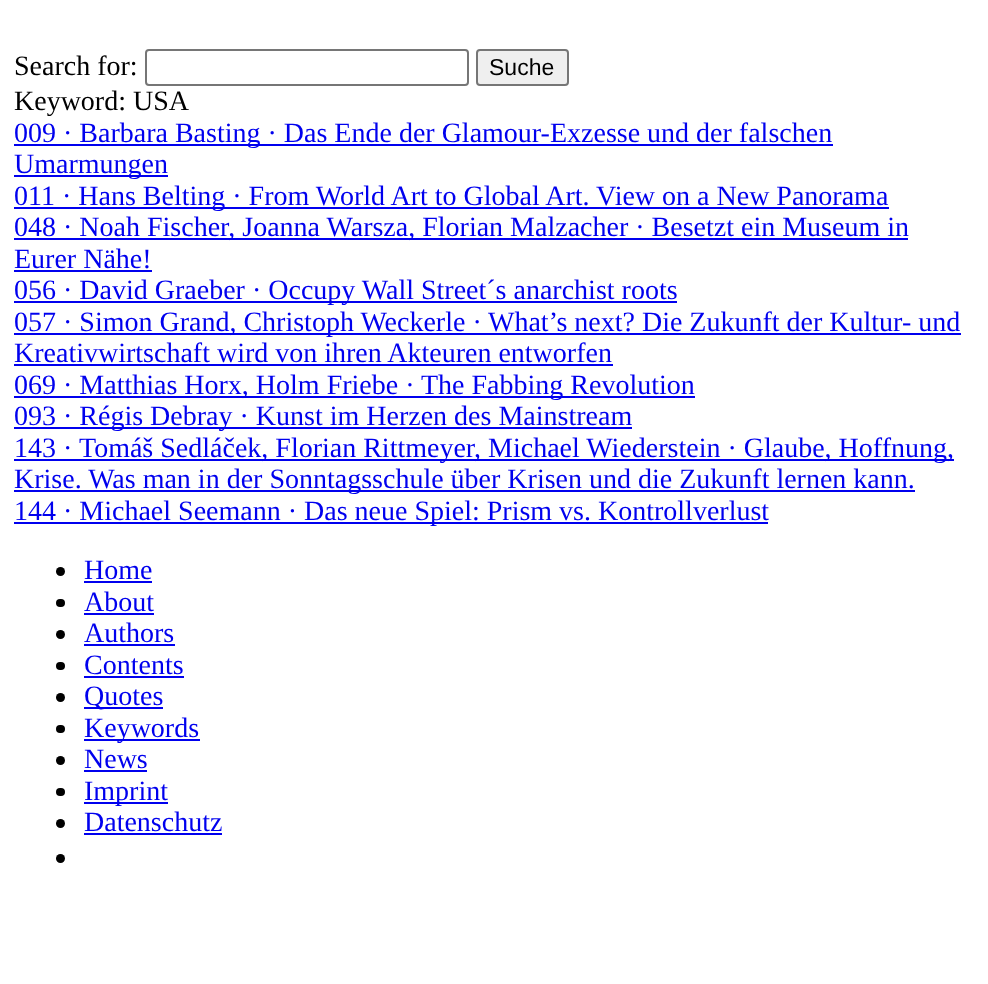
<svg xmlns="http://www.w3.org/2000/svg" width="988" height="984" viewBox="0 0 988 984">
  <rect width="100%" height="100%" fill="#fff"/>
  <rect x="146" y="50" width="322" height="35" rx="3" fill="none" stroke="#767676" stroke-width="2"/>
  <rect x="477" y="50" width="91" height="35" rx="3" fill="#efefef" stroke="#767676" stroke-width="2"/>
  <path d="M14 144h819v2H14z" fill="#00e"/>
  <path d="M14 175h154v2H14z" fill="#00e"/>
  <path d="M14 207h875v2H14z" fill="#00e"/>
  <path d="M14 238h894v2H14z" fill="#00e"/>
  <path d="M14 270h138v2H14z" fill="#00e"/>
  <path d="M14 301h663v2H14z" fill="#00e"/>
  <path d="M14 333h947v2H14z" fill="#00e"/>
  <path d="M14 364h599v2H14z" fill="#00e"/>
  <path d="M14 396h681v2H14z" fill="#00e"/>
  <path d="M14 427h618v2H14z" fill="#00e"/>
  <path d="M14 459h940v2H14z" fill="#00e"/>
  <path d="M14 490h901v2H14z" fill="#00e"/>
  <path d="M14 522h754v2H14z" fill="#00e"/>
  <circle cx="60.5" cy="571.5" r="4.5" fill="#000"/>
  <path d="M84 581h68v2H84z" fill="#00e"/>
  <rect x="56" y="599" width="9" height="8" rx="4" fill="#000"/>
  <path d="M84 613h70v2H84z" fill="#00e"/>
  <circle cx="60.5" cy="634.5" r="4.5" fill="#000"/>
  <path d="M84 644h91v2H84z" fill="#00e"/>
  <rect x="56" y="662" width="9" height="8" rx="4" fill="#000"/>
  <path d="M84 676h100v2H84z" fill="#00e"/>
  <circle cx="60.5" cy="697.5" r="4.5" fill="#000"/>
  <path d="M84 707h79v2H84z" fill="#00e"/>
  <rect x="56" y="725" width="9" height="8" rx="4" fill="#000"/>
  <path d="M84 739h116v2H84z" fill="#00e"/>
  <circle cx="60.5" cy="760.5" r="4.5" fill="#000"/>
  <path d="M84 770h63v2H84z" fill="#00e"/>
  <rect x="56" y="788" width="9" height="8" rx="4" fill="#000"/>
  <path d="M84 802h84v2H84z" fill="#00e"/>
  <circle cx="60.5" cy="823.5" r="4.5" fill="#000"/>
  <path d="M84 833h138v2H84z" fill="#00e"/>
  <circle cx="60.5" cy="858.5" r="4.5" fill="#000"/>
  <text x="14" y="75" font-family="Liberation Serif" font-size="28" fill="#000">Search for:</text>
  <text x="489" y="75" font-family="Liberation Sans" font-size="23" fill="#000">Suche</text>
  <text x="14" y="110" font-family="Liberation Serif" font-size="28" fill="#000">Keyword: USA</text>
  <g font-family="Liberation Serif" font-size="28" fill="#00e">
    <text x="14" y="142">009 · Barbara Basting · Das Ende der Glamour-Exzesse und der falschen</text>
    <text x="14" y="173">Umarmungen</text>
    <text x="14" y="205">011 · Hans Belting · From World Art to Global Art. View on a New Panorama</text>
    <text x="14" y="236">048 · Noah Fischer, Joanna Warsza, Florian Malzacher · Besetzt ein Museum in</text>
    <text x="14" y="268">Eurer Nähe!</text>
    <text x="14" y="299">056 · David Graeber · Occupy Wall Street´s anarchist roots</text>
    <text x="14" y="331">057 · Simon Grand, Christoph Weckerle ·</text>
    <text x="488" y="331">What’s next? Die Zukunft der Kultur- und</text>
    <text x="14" y="362">Kreativwirtschaft wird von ihren Akteuren entworfen</text>
    <text x="14" y="394">069 · Matthias Horx, Holm Friebe ·</text>
    <text x="421" y="394">The Fabbing Revolution</text>
    <text x="14" y="425">093 · Régis Debray · Kunst im Herzen des Mainstream</text>
    <text x="14" y="457">143 ·</text>
    <text x="79" y="457">Tomáš Sedláček, Florian Rittmeyer, Michael Wiederstein · Glaube, Hoffnung,</text>
    <text x="14" y="488">Krise. Was man in der Sonntagsschule über Krisen und die Zukunft lernen kann.</text>
    <text x="14" y="520">144 · Michael Seemann · Das neue Spiel: Prism vs. Kontrollverlust</text>
    <text x="84" y="579">Home</text>
    <text x="84" y="611">About</text>
    <text x="84" y="642">Authors</text>
    <text x="84" y="674">Contents</text>
    <text x="84" y="705">Quotes</text>
    <text x="84" y="737">Keywords</text>
    <text x="84" y="768">News</text>
    <text x="84" y="800">Imprint</text>
    <text x="84" y="831">Datenschutz</text>
  </g>
</svg>
